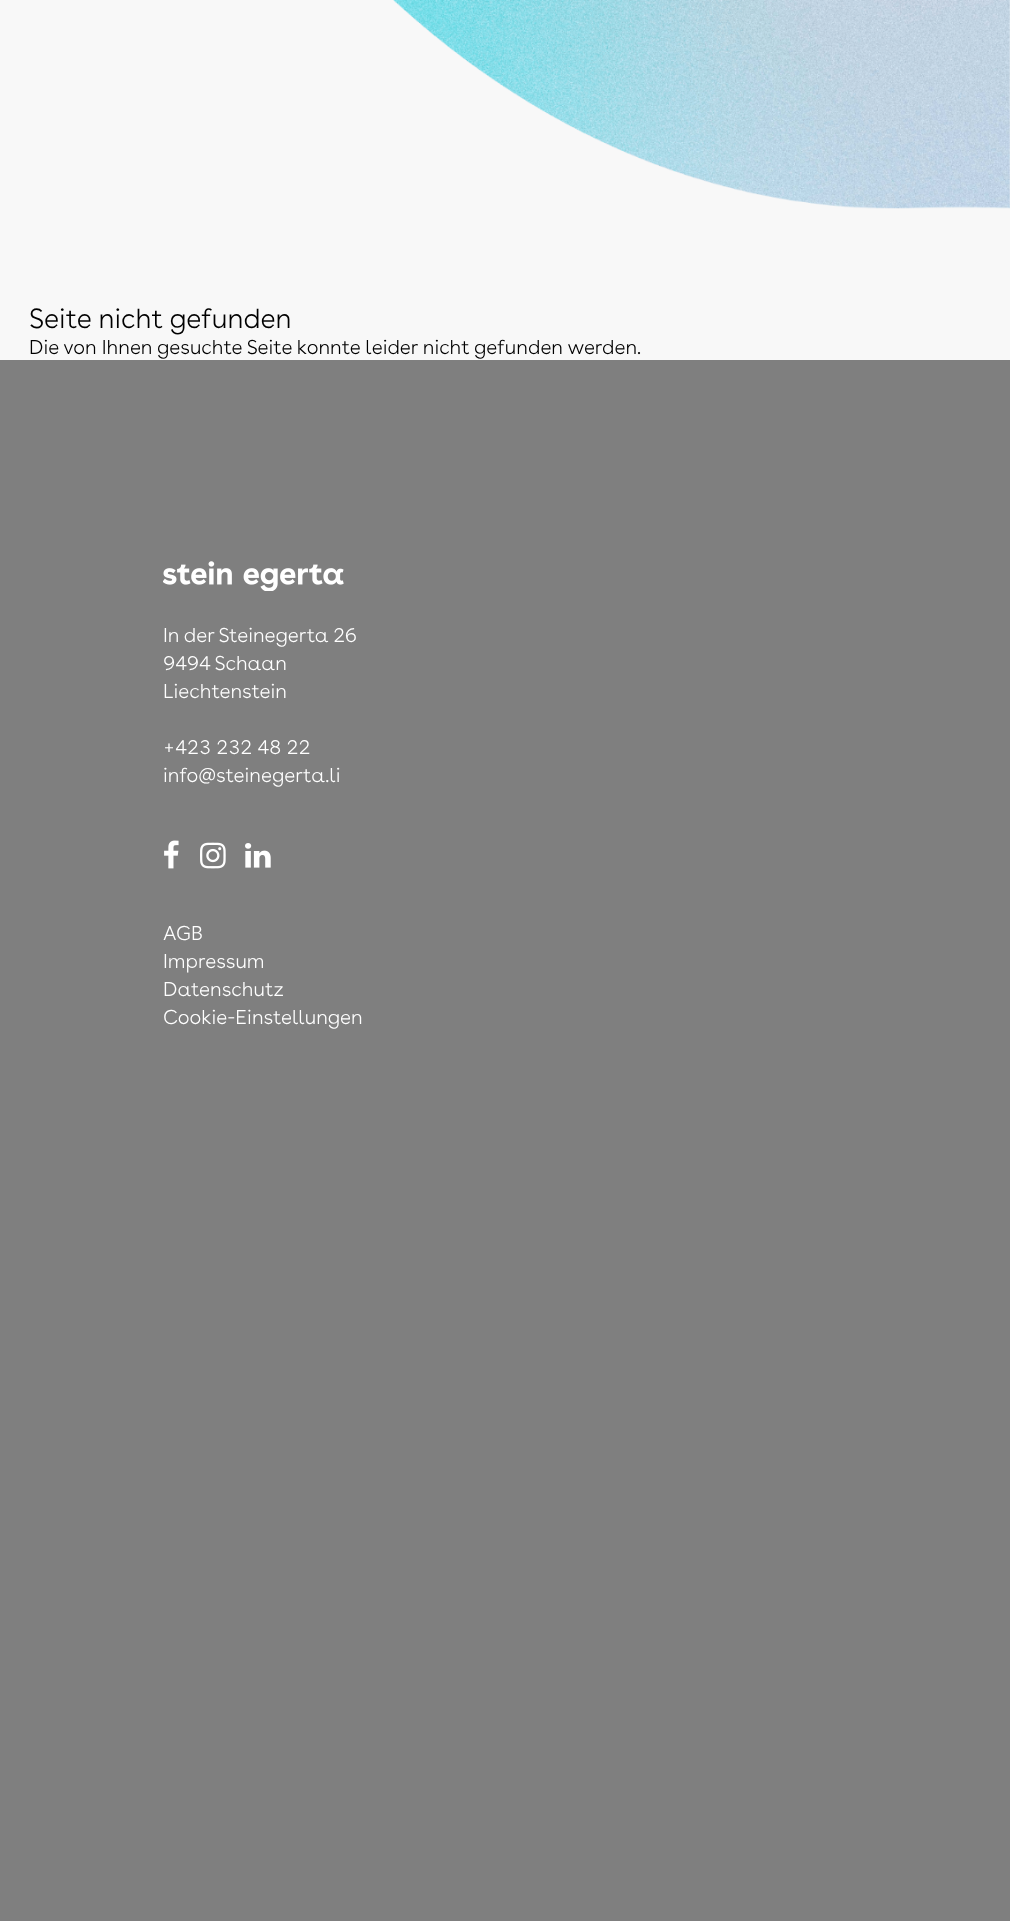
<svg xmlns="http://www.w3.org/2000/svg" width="1010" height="1921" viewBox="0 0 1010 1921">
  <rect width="100%" height="100%" fill="#f8f8f8"/>
  <image x="393" y="0" width="617" height="209" href="img/1.png"/>
  <path d="M0 360h1010v1561H0z" fill="#7f7f7f"/>
  <image x="163" y="561" width="181" height="30" href="img/2.png"/>
  <image x="164" y="840" width="15" height="29" href="img/3.png"/>
  <image x="200" y="842" width="26" height="27" href="img/4.png"/>
  <image x="245" y="843" width="26" height="25" href="img/5.png"/>
  <text x="29" y="328" font-family="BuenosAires" font-size="27.5" font-weight="300" fill="#000">Seite nicht gefunden</text>
  <text x="29" y="354" word-spacing="-0.25" font-family="BuenosAires" font-size="20" font-weight="300" fill="#000">Die von Ihnen gesuchte Seite konnte leider nicht gefunden werden.</text>
  <g font-family="BuenosAires" font-size="20" font-weight="300" fill="#fff">
    <text x="163" y="642" word-spacing="-0.5">In der Steinegerta 26</text>
    <text x="163" y="670" word-spacing="-1">9494 Schaan</text>
    <text x="163" y="698">Liechtenstein</text>
  </g>
  <text x="163" y="754" font-family="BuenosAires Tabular" font-size="20" font-weight="300" fill="#fff">+423 232 48 22</text>
  <g font-family="BuenosAires" font-size="20" font-weight="300" fill="#fff">
    <text x="163" y="782">info@steinegerta.li</text>
    <text x="163" y="940">AGB</text>
    <text x="163" y="968">Impressum</text>
    <text x="163" y="996">Datenschutz</text>
    <text x="163" y="1024">Cookie-Einstellungen</text>
  </g>
</svg>
